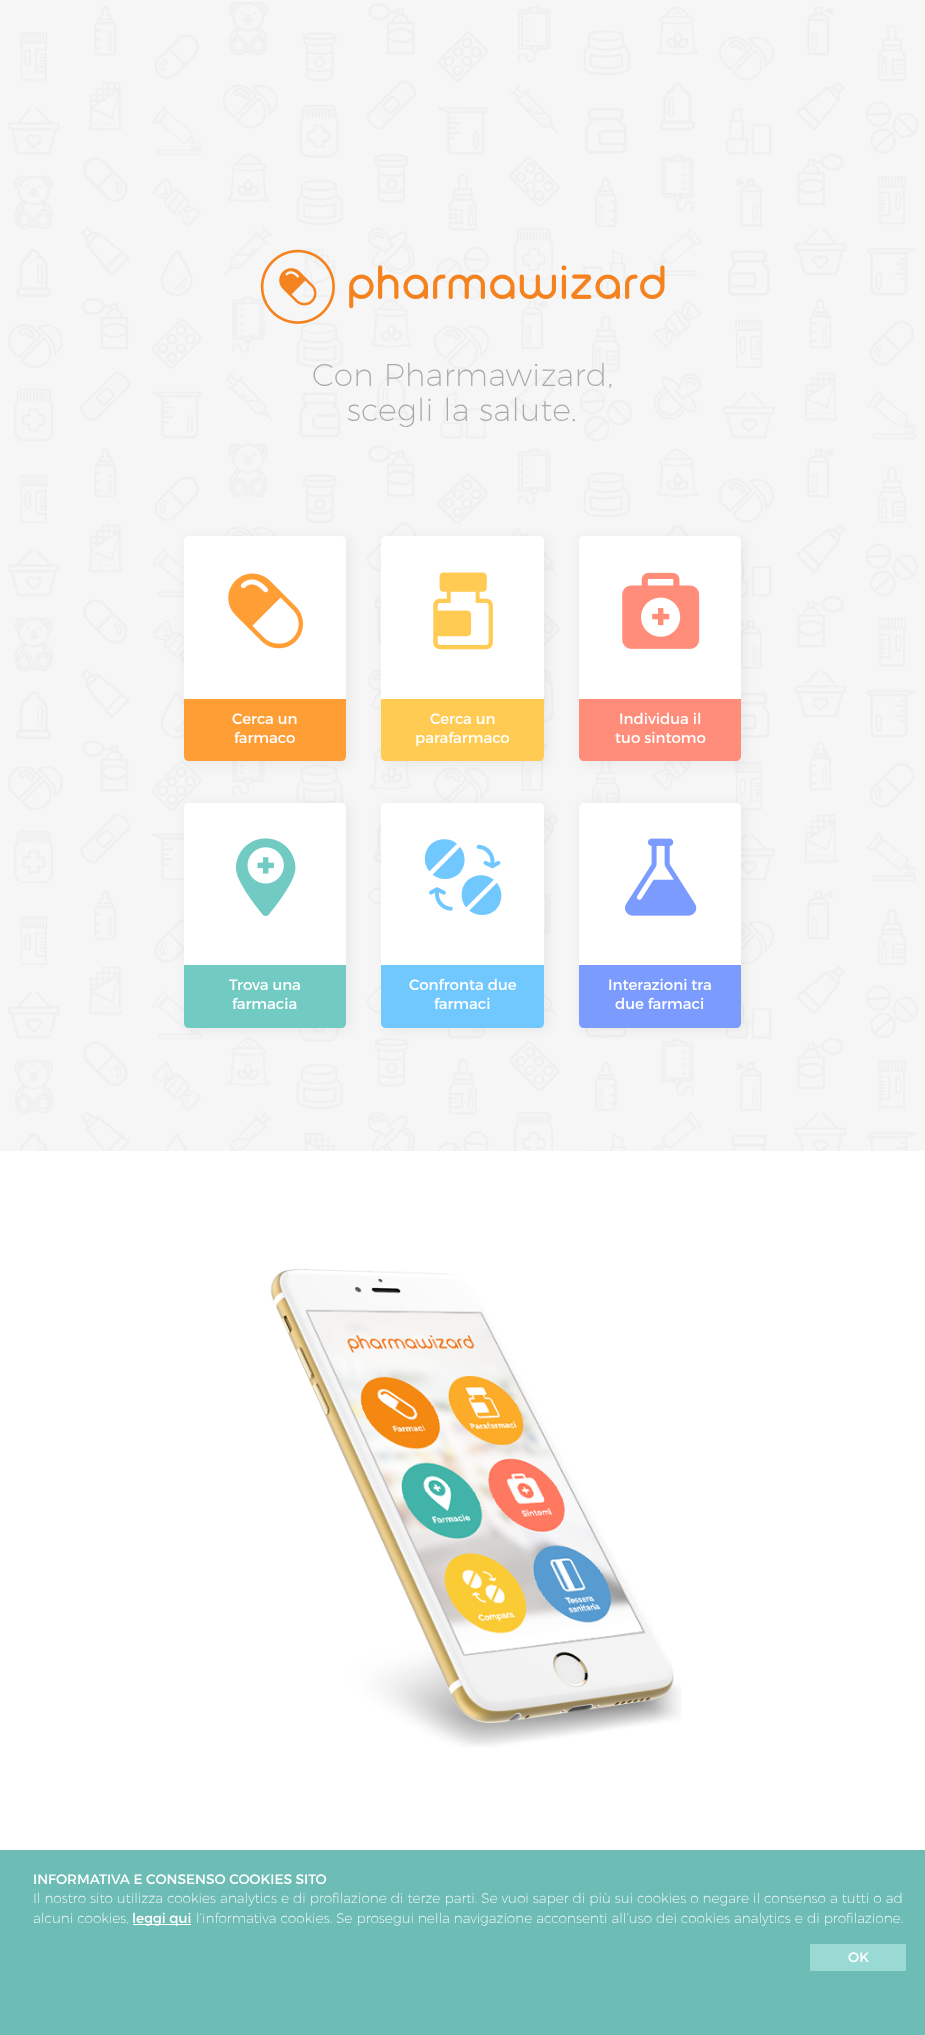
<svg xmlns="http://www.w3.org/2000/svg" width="925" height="2035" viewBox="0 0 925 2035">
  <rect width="100%" height="100%" fill="#f6f6f6"/>
  <image x="8" y="2" width="910" height="1149" href="img/1.png"/>
  <image x="260" y="249" width="405" height="75" href="img/2.png"/>
  <rect x="185" y="538" width="165" height="227" rx="6" fill="#0000000d" filter="blur(6px)"/>
  <rect x="184" y="536" width="162" height="225" rx="5" fill="#fff"/>
  <image x="228" y="573" width="75" height="76" href="img/3.png"/>
  <path d="M184 699H346V756C346 759 344 761 341 761H189C186 761 184 759 184 756Z" fill="#ff9e35"/>
  <rect x="383" y="538" width="165" height="227" rx="6" fill="#0000000d" filter="blur(6px)"/>
  <rect x="381" y="536" width="163" height="225" rx="5" fill="#fff"/>
  <image x="433" y="572" width="60" height="78" href="img/4.png"/>
  <path d="M381 699H544V756C544 759 542 761 539 761H386C383 761 381 759 381 756Z" fill="#ffcb52"/>
  <rect x="580" y="538" width="165" height="227" rx="6" fill="#0000000d" filter="blur(6px)"/>
  <rect x="579" y="536" width="162" height="225" rx="5" fill="#fff"/>
  <image x="622" y="572" width="78" height="77" href="img/5.png"/>
  <path d="M579 699H741V756C741 759 739 761 736 761H584C581 761 579 759 579 756Z" fill="#ff8d79"/>
  <rect x="185" y="804" width="165" height="227" rx="6" fill="#0000000d" filter="blur(6px)"/>
  <rect x="184" y="803" width="162" height="225" rx="5" fill="#fff"/>
  <image x="235" y="838" width="61" height="78" href="img/6.png"/>
  <path d="M184 965H346V1023C346 1026 344 1028 341 1028H189C186 1028 184 1026 184 1023Z" fill="#71cbc2"/>
  <rect x="383" y="804" width="165" height="227" rx="6" fill="#0000000d" filter="blur(6px)"/>
  <rect x="381" y="803" width="163" height="225" rx="5" fill="#fff"/>
  <image x="424" y="839" width="78" height="76" href="img/7.png"/>
  <path d="M381 965H544V1023C544 1026 542 1028 539 1028H386C383 1028 381 1026 381 1023Z" fill="#71c8ff"/>
  <rect x="580" y="804" width="165" height="227" rx="6" fill="#0000000d" filter="blur(6px)"/>
  <rect x="579" y="803" width="162" height="225" rx="5" fill="#fff"/>
  <image x="625" y="838" width="72" height="78" href="img/8.png"/>
  <path d="M579 965H741V1023C741 1026 739 1028 736 1028H584C581 1028 579 1026 579 1023Z" fill="#7c9bff"/>
  <path d="M0 1151h925v699H0z" fill="#fff"/>
  <image x="270" y="1269" width="412" height="479" href="img/9.png"/>
  <path d="M0 1850h925v185H0z" fill="#6dbcb5"/>
  <path d="M133 1924h58v1H133z" fill="#fff"/>
  <path d="M810 1944h96v27H810z" fill="#99dad4"/>
  <g font-family="Montserrat" font-size="31.5" font-weight="200" letter-spacing="0.3" fill="#a9a9a9">
    <text x="312" y="386">Con Pharmawizard,</text>
    <text x="347" y="421">scegli la salute.</text>
  </g>
  <g font-family="Montserrat" font-size="15" fill="#fff">
    <text x="232" y="724">Cerca un</text>
    <text x="234" y="743">farmaco</text>
    <text x="430" y="724">Cerca un</text>
    <text x="415" y="743">parafarmaco</text>
    <text x="619" y="724">Individua il</text>
    <text x="615" y="743">tuo sintomo</text>
    <text x="229" y="990">Trova una</text>
    <text x="232" y="1009">farmacia</text>
    <text x="409" y="990">Confronta due</text>
    <text x="434" y="1009">farmaci</text>
    <text x="608" y="990">Interazioni tra</text>
    <text x="615" y="1009">due farmaci</text>
  </g>
  <text x="33" y="1884" font-family="Montserrat" font-size="13.75" fill="#fff">INFORMATIVA E CONSENSO COOKIES SITO</text>
  <g font-family="Montserrat" font-size="13.75" font-weight="200" fill="#fff">
    <text x="33" y="1903">Il nostro sito utilizza cookies analytics e di profilazione di terze parti. Se vuoi saper di più sui cookies o negare il consenso a tutti o ad</text>
    <text x="33" y="1923">alcuni cookies,</text>
  </g>
  <text x="132" y="1923" font-family="Montserrat" font-size="13.75" fill="#fff">leggi qui</text>
  <text x="196" y="1923" font-family="Montserrat" font-size="13.75" font-weight="200" fill="#fff">l’informativa cookies. Se prosegui nella navigazione acconsenti all’uso dei cookies analytics e di profilazione.</text>
  <text x="848" y="1962" font-family="Montserrat" font-size="13.75" fill="#fff">OK</text>
</svg>
